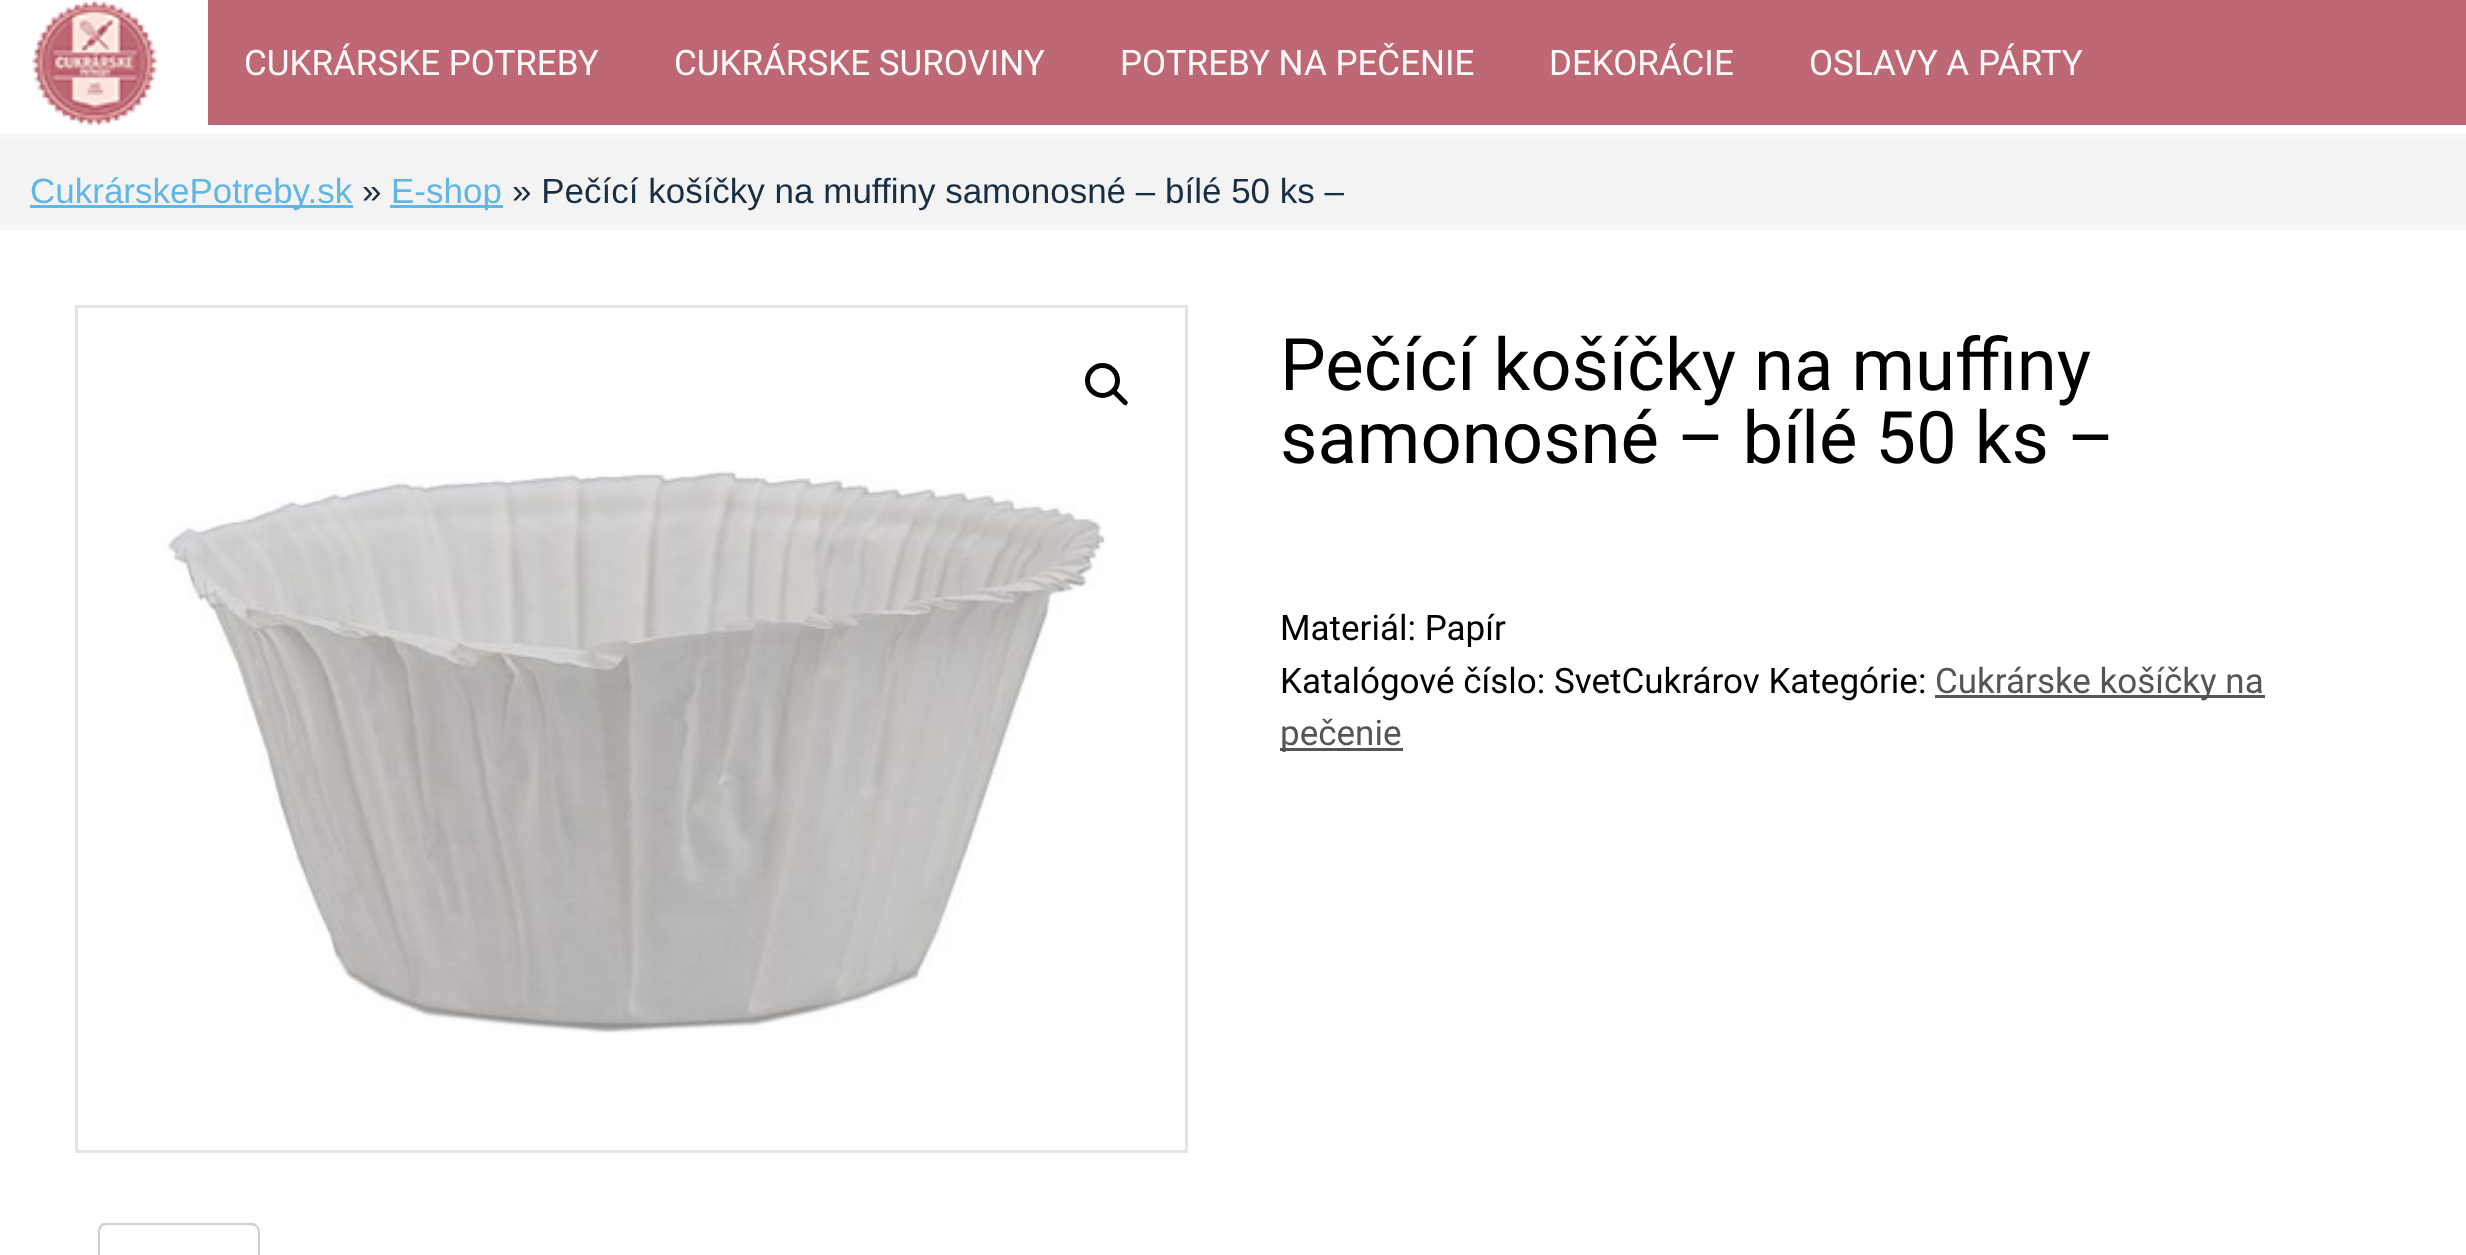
<svg xmlns="http://www.w3.org/2000/svg" width="2466" height="1255" viewBox="0 0 2466 1255">
  <defs>
    <clipPath id="clip1"><path d="M75 1223h2318v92H75z"/></clipPath>
  </defs>
  <rect width="100%" height="100%" fill="#f7f7f7"/>
  <path d="M0 0h2466v133H0z" fill="#fff"/>
  <image x="32" y="0" width="126" height="126" href="img/1.png"/>
  <path d="M208 0h2258v125H208z" fill="#bf6875"/>
  <path d="M0 138h2466v87H0z" fill="#f3f3f3"/>
  <path d="M30 205h323v3H30z" fill="#62b6e3"/>
  <path d="M390 205h113v3H390z" fill="#62b6e3"/>
  <path d="M0 230h2466v1025H0z" fill="#fff"/>
  <path d="M76.5 306.5h1110v845H76.5z" fill="none" stroke="#e5e4e4" stroke-width="3"/>
  <image x="163" y="471" width="944" height="563" href="img/2.png"/>
  <circle cx="1102.5" cy="380.5" r="15" fill="none" stroke="#000" stroke-width="5"/>
  <path d="M1113 390.5C1114 389.5 1115.5 389.5 1116.5 390.5L1127 401C1128 402 1128 403.5 1127 404.5C1126 405.5 1124.5 405.5 1123.5 404.5L1113 394C1112 393 1112 391.5 1113 390.5Z" fill="#000"/>
  <path d="M1935 695h330v3H1935z" fill="#555"/>
  <path d="M1280 748h123v3H1280z" fill="#555"/>
  <g clip-path="url(#clip1)">
    <path d="M108 1225C105 1225 103 1226 102 1227L100 1225C101 1224 103 1223 105 1222H253L257 1225L256 1227C254 1226 252 1225 250 1225Z" fill="#d3ced2"/>
  </g>
  <path d="M260 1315V1232C260 1230 259 1227 257 1225L256 1227L258 1231V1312H257Z" fill="#d3ced2"/>
  <path d="M98 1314V1232C98 1230 99 1227 100 1225L102 1227C101 1228 100 1230 100 1232V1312Z" fill="#d3ced2"/>
  <g font-family="Roboto" font-size="35" fill="#fffafa">
    <text x="244" y="75">CUKRÁRSKE POTREBY</text>
    <text x="674" y="75">CUKRÁRSKE SUROVINY</text>
    <text x="1120" y="75">POTREBY NA PEČENIE</text>
    <text x="1549" y="75">DEKORÁCIE</text>
    <text x="1809" y="75">OSLAVY A PÁRTY</text>
  </g>
  <text x="30" y="203" font-family="Liberation Sans" font-size="35" fill="#62b6e3">CukrárskePotreby.sk</text>
  <text x="362" y="203" font-family="Liberation Sans" font-size="35" fill="#182e42">»</text>
  <text x="391" y="203" font-family="Liberation Sans" font-size="35" fill="#62b6e3">E-shop</text>
  <text x="512" y="203" font-family="Liberation Sans" font-size="35" fill="#182e42">» Pečící košíčky na muffiny samonosné – bílé 50 ks –</text>
  <g font-family="Roboto" font-size="72.5" fill="#000">
    <text x="1280" y="390">Pečící košíčky na muffiny</text>
    <text x="1280" y="463">samonosné – bílé 50 ks –</text>
  </g>
  <g font-family="Roboto" font-size="35" fill="#000">
    <text x="1280" y="640">Materiál: Papír</text>
    <text x="1280" y="693">Katalógové číslo: SvetCukrárov Kategórie:</text>
  </g>
  <g font-family="Roboto" font-size="35" fill="#555">
    <text x="1935" y="693">Cukrárske košíčky na</text>
    <text x="1280" y="745">pečenie</text>
  </g>
</svg>
